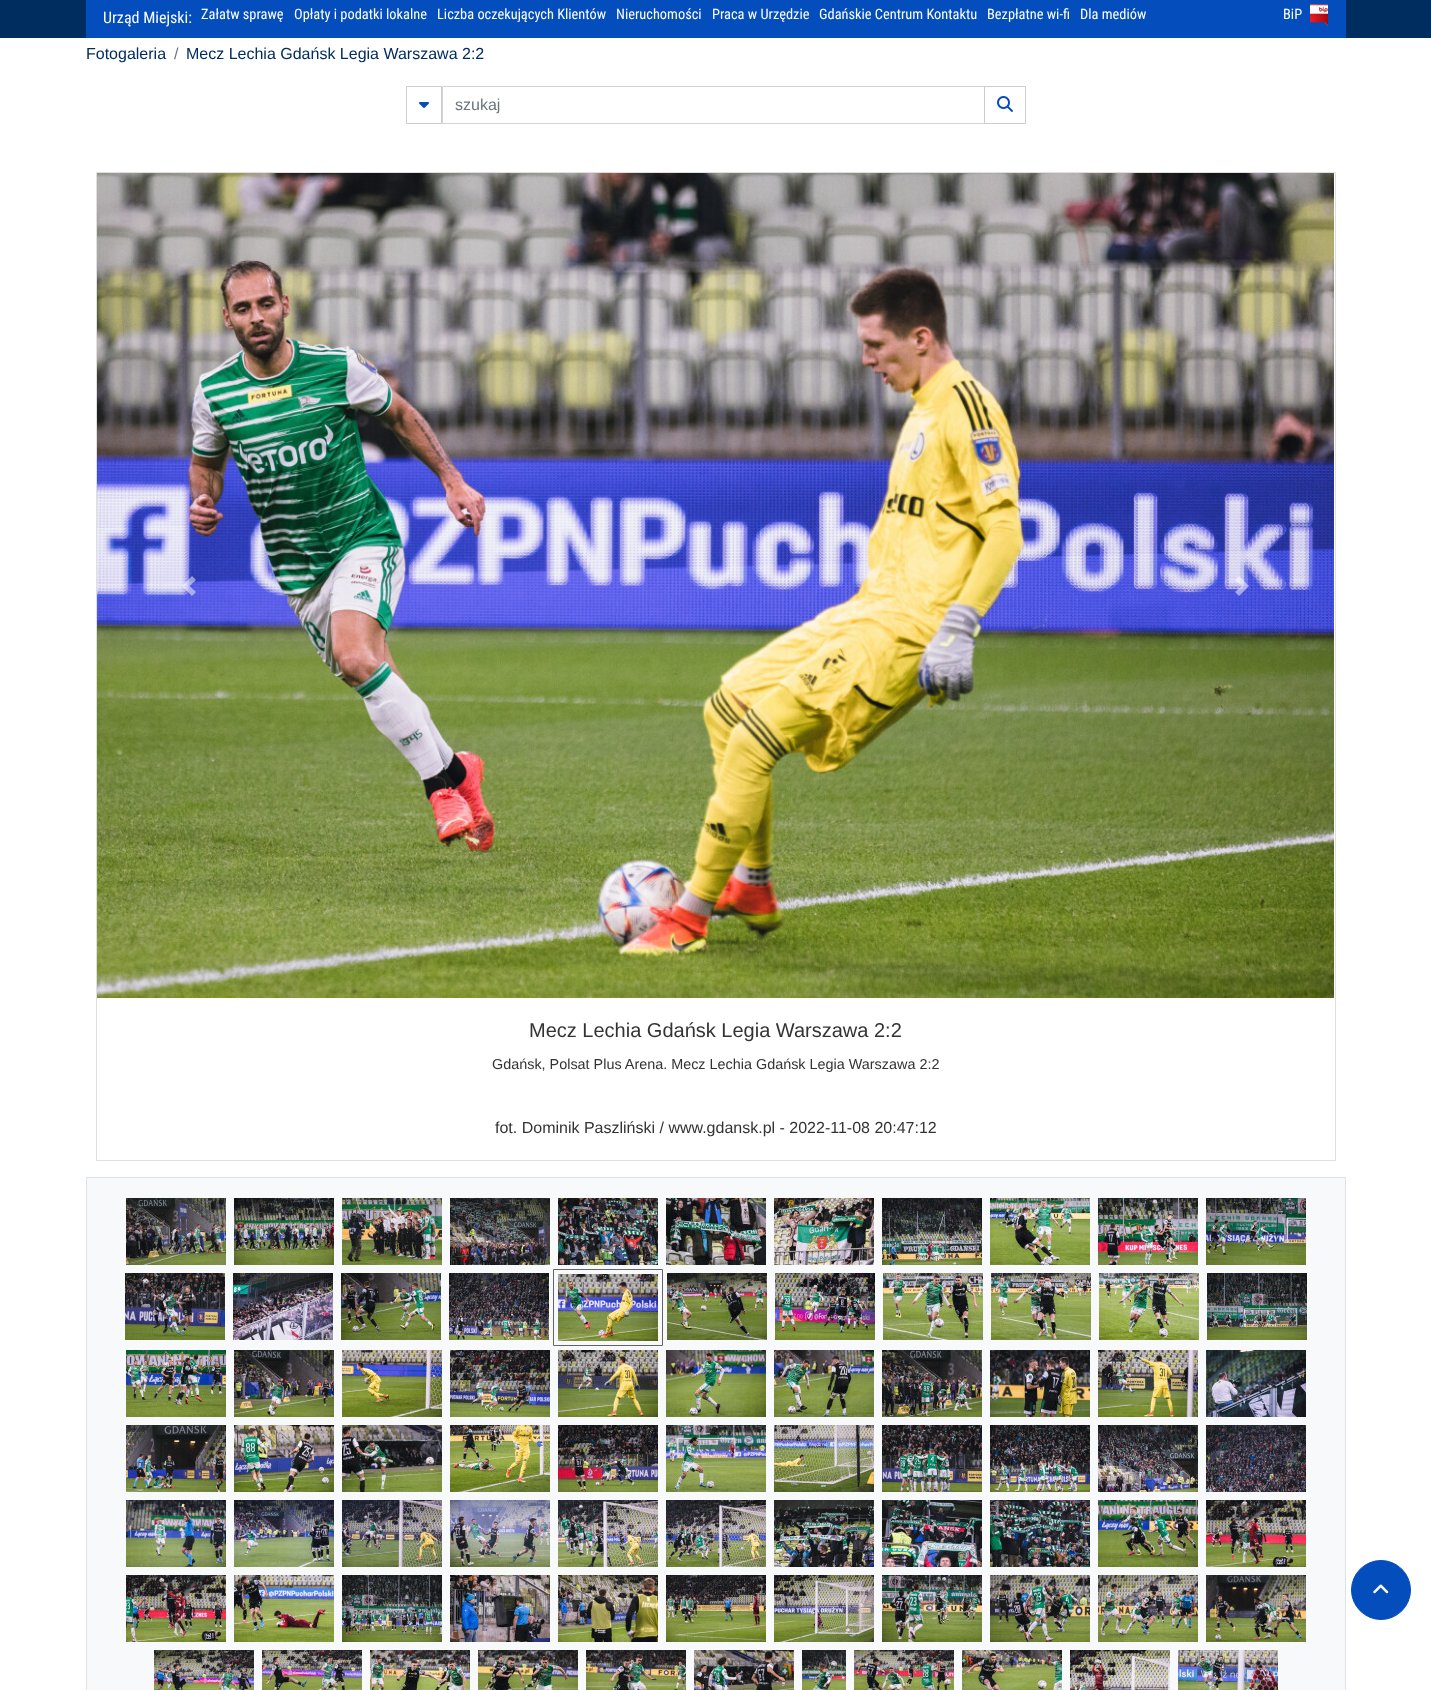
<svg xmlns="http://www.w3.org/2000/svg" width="1431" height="1690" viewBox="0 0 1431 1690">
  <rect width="100%" height="100%" fill="#fff"/>
  <path d="M0 0h1431v38H0z" fill="#002d60"/>
  <path d="M86 0h1260v38H86z" fill="#034ebc"/>
  <image x="1310" y="4" width="18" height="22" href="img/1.png"/>
  <path d="M406.5 86.5h35v37H406.5z" fill="none" stroke="#ccc"/>
  <image x="419" y="102" width="10" height="6" href="img/2.png"/>
  <path d="M442.5 86.5h542v37H442.5z" fill="none" stroke="#ced4da"/>
  <path d="M984.5 86.5h41v37H984.5z" fill="none" stroke="#ccc"/>
  <image x="997" y="96" width="16" height="16" href="img/3.png"/>
  <path d="M96.5 172.5h1239v988H96.5z" fill="none" stroke="#dfdfdf"/>
  <image x="97" y="173" width="1237" height="825" href="img/4.png"/>
  <path d="M192 576L182 586L192 596L196 592L189.5 586L196 580Z" fill="#ffffff80"/>
  <path d="M1239 576L1235 580L1241.5 586L1235 592L1239 596L1249 586Z" fill="#ffffff80"/>
  <path d="M86.5 1177.5h1259v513H86.5z" fill="#f8f9fa" stroke="#dee2e6"/>
  <image x="126" y="1198" width="100" height="67" href="img/5.png"/>
  <image x="234" y="1198" width="100" height="67" href="img/6.png"/>
  <image x="342" y="1198" width="100" height="67" href="img/7.png"/>
  <image x="450" y="1198" width="100" height="67" href="img/8.png"/>
  <image x="558" y="1198" width="100" height="67" href="img/9.png"/>
  <image x="666" y="1198" width="100" height="67" href="img/10.png"/>
  <image x="774" y="1198" width="100" height="67" href="img/11.png"/>
  <image x="882" y="1198" width="100" height="67" href="img/12.png"/>
  <image x="990" y="1198" width="100" height="67" href="img/13.png"/>
  <image x="1098" y="1198" width="100" height="67" href="img/14.png"/>
  <image x="1206" y="1198" width="100" height="67" href="img/15.png"/>
  <image x="125" y="1273" width="100" height="67" href="img/16.png"/>
  <image x="233" y="1273" width="100" height="67" href="img/17.png"/>
  <image x="341" y="1273" width="100" height="67" href="img/18.png"/>
  <image x="449" y="1273" width="100" height="67" href="img/19.png"/>
  <path d="M553.5 1269.5h109v76H553.5z" fill="none" stroke="#646464"/>
  <image x="558" y="1274" width="100" height="67" href="img/20.png"/>
  <image x="667" y="1273" width="100" height="67" href="img/21.png"/>
  <image x="775" y="1273" width="100" height="67" href="img/22.png"/>
  <image x="883" y="1273" width="100" height="67" href="img/23.png"/>
  <image x="991" y="1273" width="100" height="67" href="img/24.png"/>
  <image x="1099" y="1273" width="100" height="67" href="img/25.png"/>
  <image x="1207" y="1273" width="100" height="67" href="img/26.png"/>
  <image x="126" y="1350" width="100" height="67" href="img/27.png"/>
  <image x="234" y="1350" width="100" height="67" href="img/28.png"/>
  <image x="342" y="1350" width="100" height="67" href="img/29.png"/>
  <image x="450" y="1350" width="100" height="67" href="img/30.png"/>
  <image x="558" y="1350" width="100" height="67" href="img/31.png"/>
  <image x="666" y="1350" width="100" height="67" href="img/32.png"/>
  <image x="774" y="1350" width="100" height="67" href="img/33.png"/>
  <image x="882" y="1350" width="100" height="67" href="img/34.png"/>
  <image x="990" y="1350" width="100" height="67" href="img/35.png"/>
  <image x="1098" y="1350" width="100" height="67" href="img/36.png"/>
  <image x="1206" y="1350" width="100" height="67" href="img/37.png"/>
  <image x="126" y="1425" width="100" height="67" href="img/38.png"/>
  <image x="234" y="1425" width="100" height="67" href="img/39.png"/>
  <image x="342" y="1425" width="100" height="67" href="img/40.png"/>
  <image x="450" y="1425" width="100" height="67" href="img/41.png"/>
  <image x="558" y="1425" width="100" height="67" href="img/42.png"/>
  <image x="666" y="1425" width="100" height="67" href="img/43.png"/>
  <image x="774" y="1425" width="100" height="67" href="img/44.png"/>
  <image x="882" y="1425" width="100" height="67" href="img/45.png"/>
  <image x="990" y="1425" width="100" height="67" href="img/46.png"/>
  <image x="1098" y="1425" width="100" height="67" href="img/47.png"/>
  <image x="1206" y="1425" width="100" height="67" href="img/48.png"/>
  <image x="126" y="1500" width="100" height="67" href="img/49.png"/>
  <image x="234" y="1500" width="100" height="67" href="img/50.png"/>
  <image x="342" y="1500" width="100" height="67" href="img/51.png"/>
  <image x="450" y="1500" width="100" height="67" href="img/52.png"/>
  <image x="558" y="1500" width="100" height="67" href="img/53.png"/>
  <image x="666" y="1500" width="100" height="67" href="img/54.png"/>
  <image x="774" y="1500" width="100" height="67" href="img/55.png"/>
  <image x="882" y="1500" width="100" height="67" href="img/56.png"/>
  <image x="990" y="1500" width="100" height="67" href="img/57.png"/>
  <image x="1098" y="1500" width="100" height="67" href="img/58.png"/>
  <image x="1206" y="1500" width="100" height="67" href="img/59.png"/>
  <image x="126" y="1575" width="100" height="67" href="img/60.png"/>
  <image x="234" y="1575" width="100" height="67" href="img/61.png"/>
  <image x="342" y="1575" width="100" height="67" href="img/62.png"/>
  <image x="450" y="1575" width="100" height="67" href="img/63.png"/>
  <image x="558" y="1575" width="100" height="67" href="img/64.png"/>
  <image x="666" y="1575" width="100" height="67" href="img/65.png"/>
  <image x="774" y="1575" width="100" height="67" href="img/66.png"/>
  <image x="882" y="1575" width="100" height="67" href="img/67.png"/>
  <image x="990" y="1575" width="100" height="67" href="img/68.png"/>
  <image x="1098" y="1575" width="100" height="67" href="img/69.png"/>
  <image x="1206" y="1575" width="100" height="67" href="img/70.png"/>
  <image x="154" y="1650" width="100" height="40" href="img/71.png"/>
  <image x="262" y="1650" width="100" height="40" href="img/72.png"/>
  <image x="370" y="1650" width="100" height="40" href="img/73.png"/>
  <image x="478" y="1650" width="100" height="40" href="img/74.png"/>
  <image x="586" y="1650" width="100" height="40" href="img/75.png"/>
  <image x="694" y="1650" width="100" height="40" href="img/76.png"/>
  <image x="802" y="1650" width="44" height="40" href="img/77.png"/>
  <image x="854" y="1650" width="100" height="40" href="img/78.png"/>
  <image x="962" y="1650" width="100" height="40" href="img/79.png"/>
  <image x="1070" y="1650" width="100" height="40" href="img/80.png"/>
  <image x="1178" y="1650" width="100" height="40" href="img/81.png"/>
  <circle cx="1381" cy="1590" r="29.5" fill="#034ebc" stroke="#034ebc"/>
  <image x="1373" y="1584" width="16" height="10" href="img/82.png"/>
  <text x="103" y="23" font-family="Roboto Condensed" font-size="16" fill="#fff">Urząd Miejski:</text>
  <g font-family="Roboto Condensed" font-size="14.4" fill="#fff">
    <text x="201" y="19">Załatw sprawę</text>
    <text x="294" y="19">Opłaty i podatki lokalne</text>
    <text x="437" y="19">Liczba oczekujących Klientów</text>
    <text x="616" y="19">Nieruchomości</text>
    <text x="712" y="19">Praca w Urzędzie</text>
    <text x="819" y="19">Gdańskie Centrum Kontaktu</text>
    <text x="987" y="19">Bezpłatne wi-fi</text>
    <text x="1080" y="19">Dla mediów</text>
    <text x="1283" y="19">BiP</text>
  </g>
  <text x="86" y="59" font-family="Liberation Sans" font-size="16" fill="#002d60">Fotogaleria</text>
  <text x="174" y="59" font-family="Liberation Sans" font-size="16" fill="#6c757d">/</text>
  <text x="186" y="59" font-family="Liberation Sans" font-size="16" fill="#002d60">Mecz Lechia Gdańsk Legia Warszawa 2:2</text>
  <text x="455" y="110" font-family="Liberation Sans" font-size="16" fill="#6c757d">szukaj</text>
  <text x="529" y="1037" font-family="Liberation Sans" font-size="20" fill="#333">Mecz Lechia Gdańsk Legia Warszawa 2:2</text>
  <text x="492" y="1069" font-family="Liberation Sans" font-size="14.4" fill="#333">Gdańsk, Polsat Plus Arena. Mecz Lechia Gdańsk Legia Warszawa 2:2</text>
  <text x="495" y="1133" font-family="Liberation Sans" font-size="16" fill="#333">fot. Dominik Paszliński / www.gdansk.pl - 2022-11-08 20:47:12</text>
</svg>
